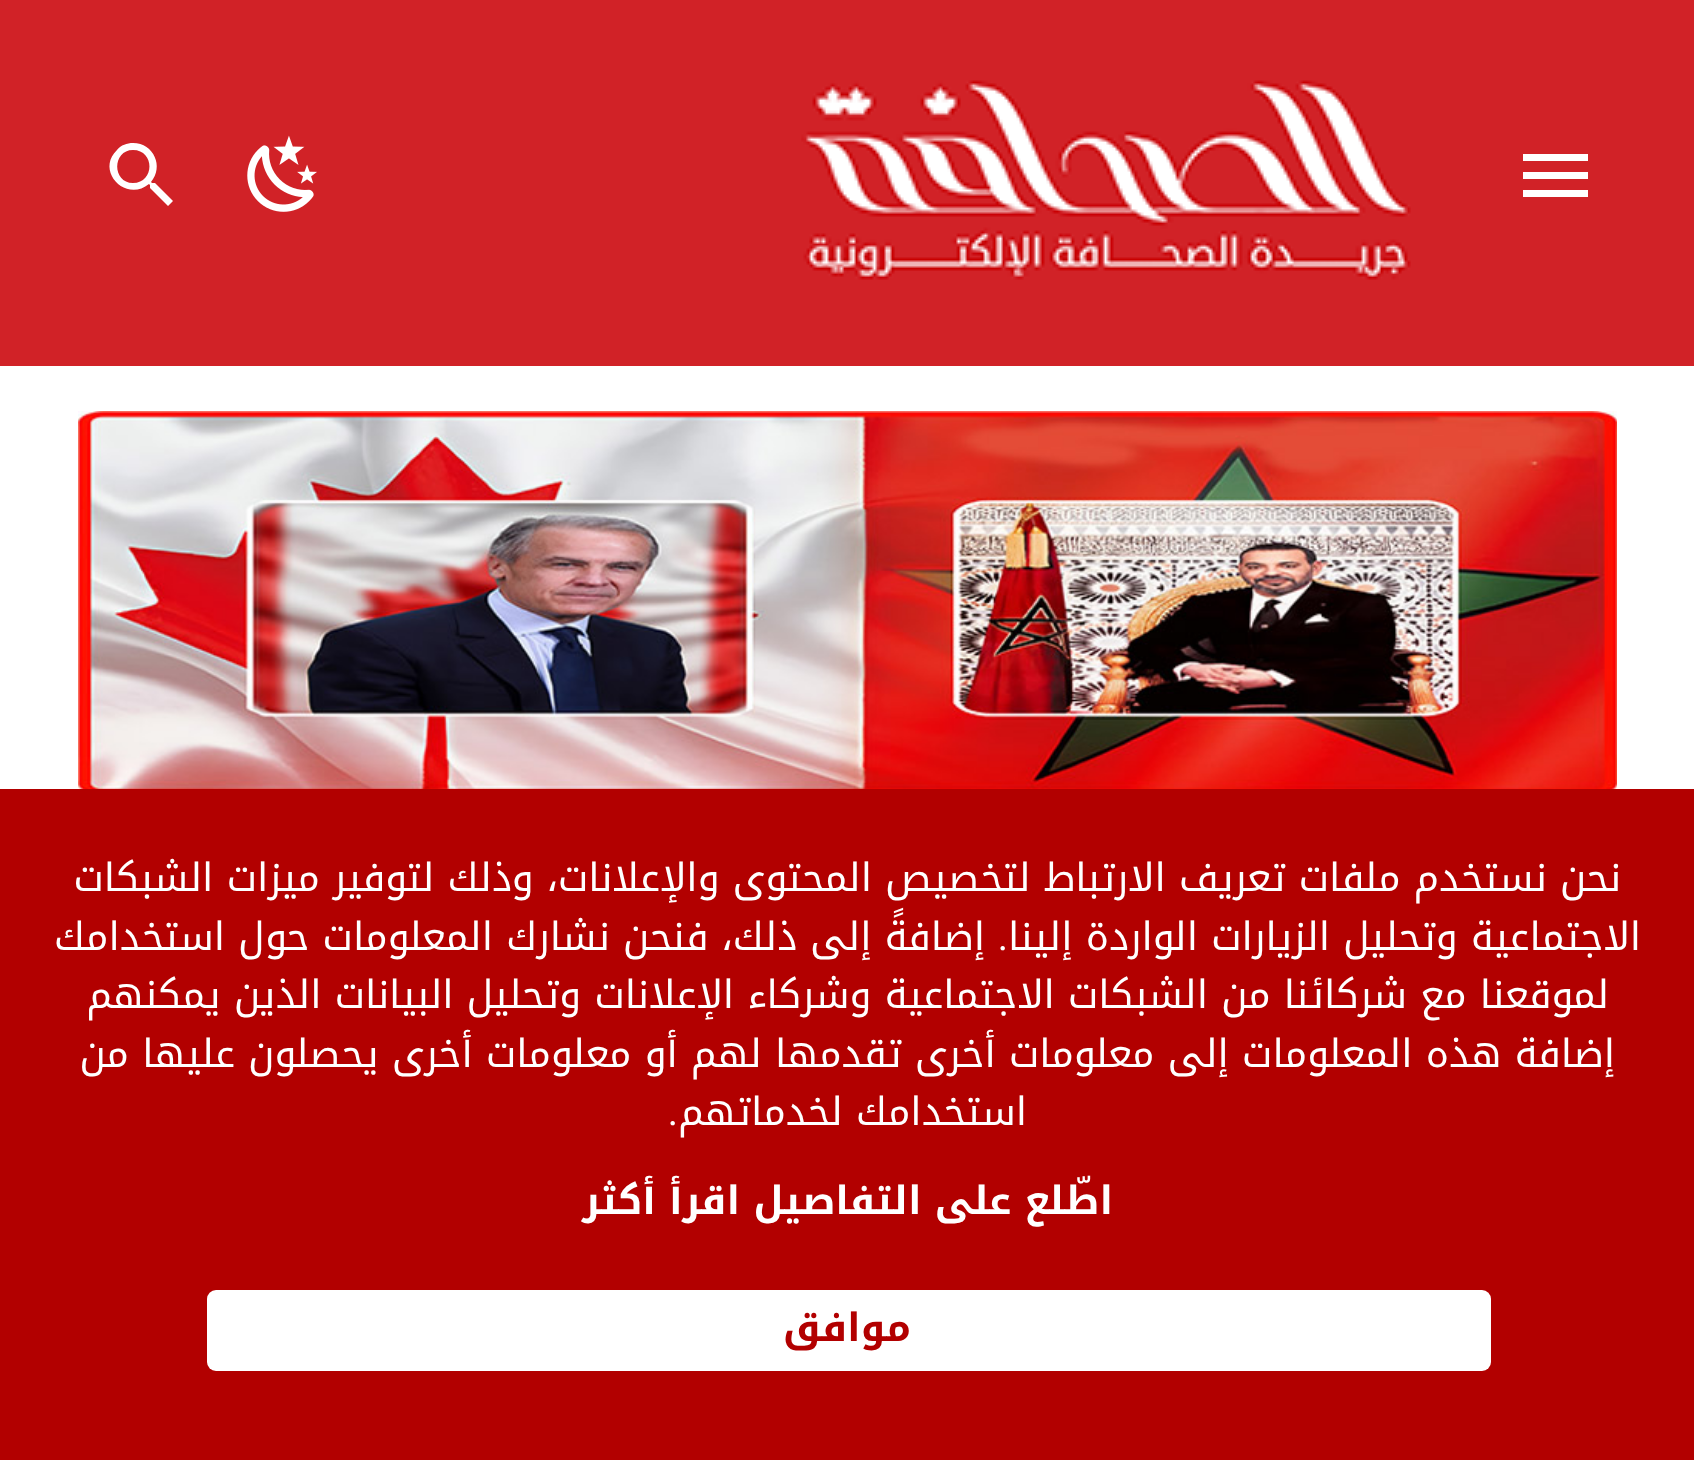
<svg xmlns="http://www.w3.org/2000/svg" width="1694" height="1460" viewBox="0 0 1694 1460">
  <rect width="100%" height="100%" fill="#fff"/>
  <path d="M0 0h1694v366H0z" fill="#d12227"/>
  <path d="M1523 154H1588V161H1523V154M1523 172H1588V179H1523V172M1523 190H1588V197H1523Z" fill="#fff"/>
  <image x="801" y="80" width="610" height="200" href="img/1.png"/>
  <image x="247" y="135" width="70" height="77" href="img/2.png"/>
  <path d="M133 143C154 143 164 167 151 182L152 183H155L173 201L168 206L150 188V185L149 184C126 203 95 171 117 150C121 145 127 143 133 143M133 150C112 150 112 183 133 183C155 183 155 150 133 150Z" fill="#fff"/>
  <image x="78" y="411" width="1539" height="378" href="img/3.png"/>
  <path d="M0 789h1694v671H0z" fill="#b20000"/>
  <rect x="207" y="1290" width="1284" height="81" rx="9" fill="#fff"/>
  <g font-family="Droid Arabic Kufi" font-size="39" direction="rtl" fill="#fff">
    <text x="1621" y="891">نحن نستخدم ملفات تعريف الارتباط لتخصيص المحتوى والإعلانات، وذلك لتوفير ميزات الشبكات</text>
    <text x="1641" y="950">الاجتماعية وتحليل الزيارات الواردة إلينا</text>
  </g>
  <text x="1008" y="950" font-family="Roboto" font-size="39" direction="rtl" fill="#fff">.</text>
  <g font-family="Droid Arabic Kufi" font-size="39" direction="rtl" fill="#fff">
    <text x="985" y="950">إضافةً إلى ذلك، فنحن نشارك المعلومات حول استخدامك</text>
    <text x="1609" y="1008">لموقعنا مع شركائنا من الشبكات الاجتماعية وشركاء الإعلانات وتحليل البيانات الذين يمكنهم</text>
    <text x="1615" y="1067">إضافة هذه المعلومات إلى معلومات أخرى تقدمها لهم أو معلومات أخرى يحصلون عليها من</text>
    <text x="1027" y="1125">استخدامك لخدماتهم</text>
  </g>
  <text x="678" y="1125" font-family="Roboto" font-size="39" direction="rtl" fill="#fff">.</text>
  <text x="1113" y="1214" font-family="Droid Arabic Kufi" font-size="39" font-weight="bold" direction="rtl" fill="#fff">اطّلع على التفاصيل اقرأ أكثر</text>
  <text x="911" y="1341" font-family="Droid Arabic Kufi" font-size="39" font-weight="bold" direction="rtl" fill="#b20000">موافق</text>
</svg>
